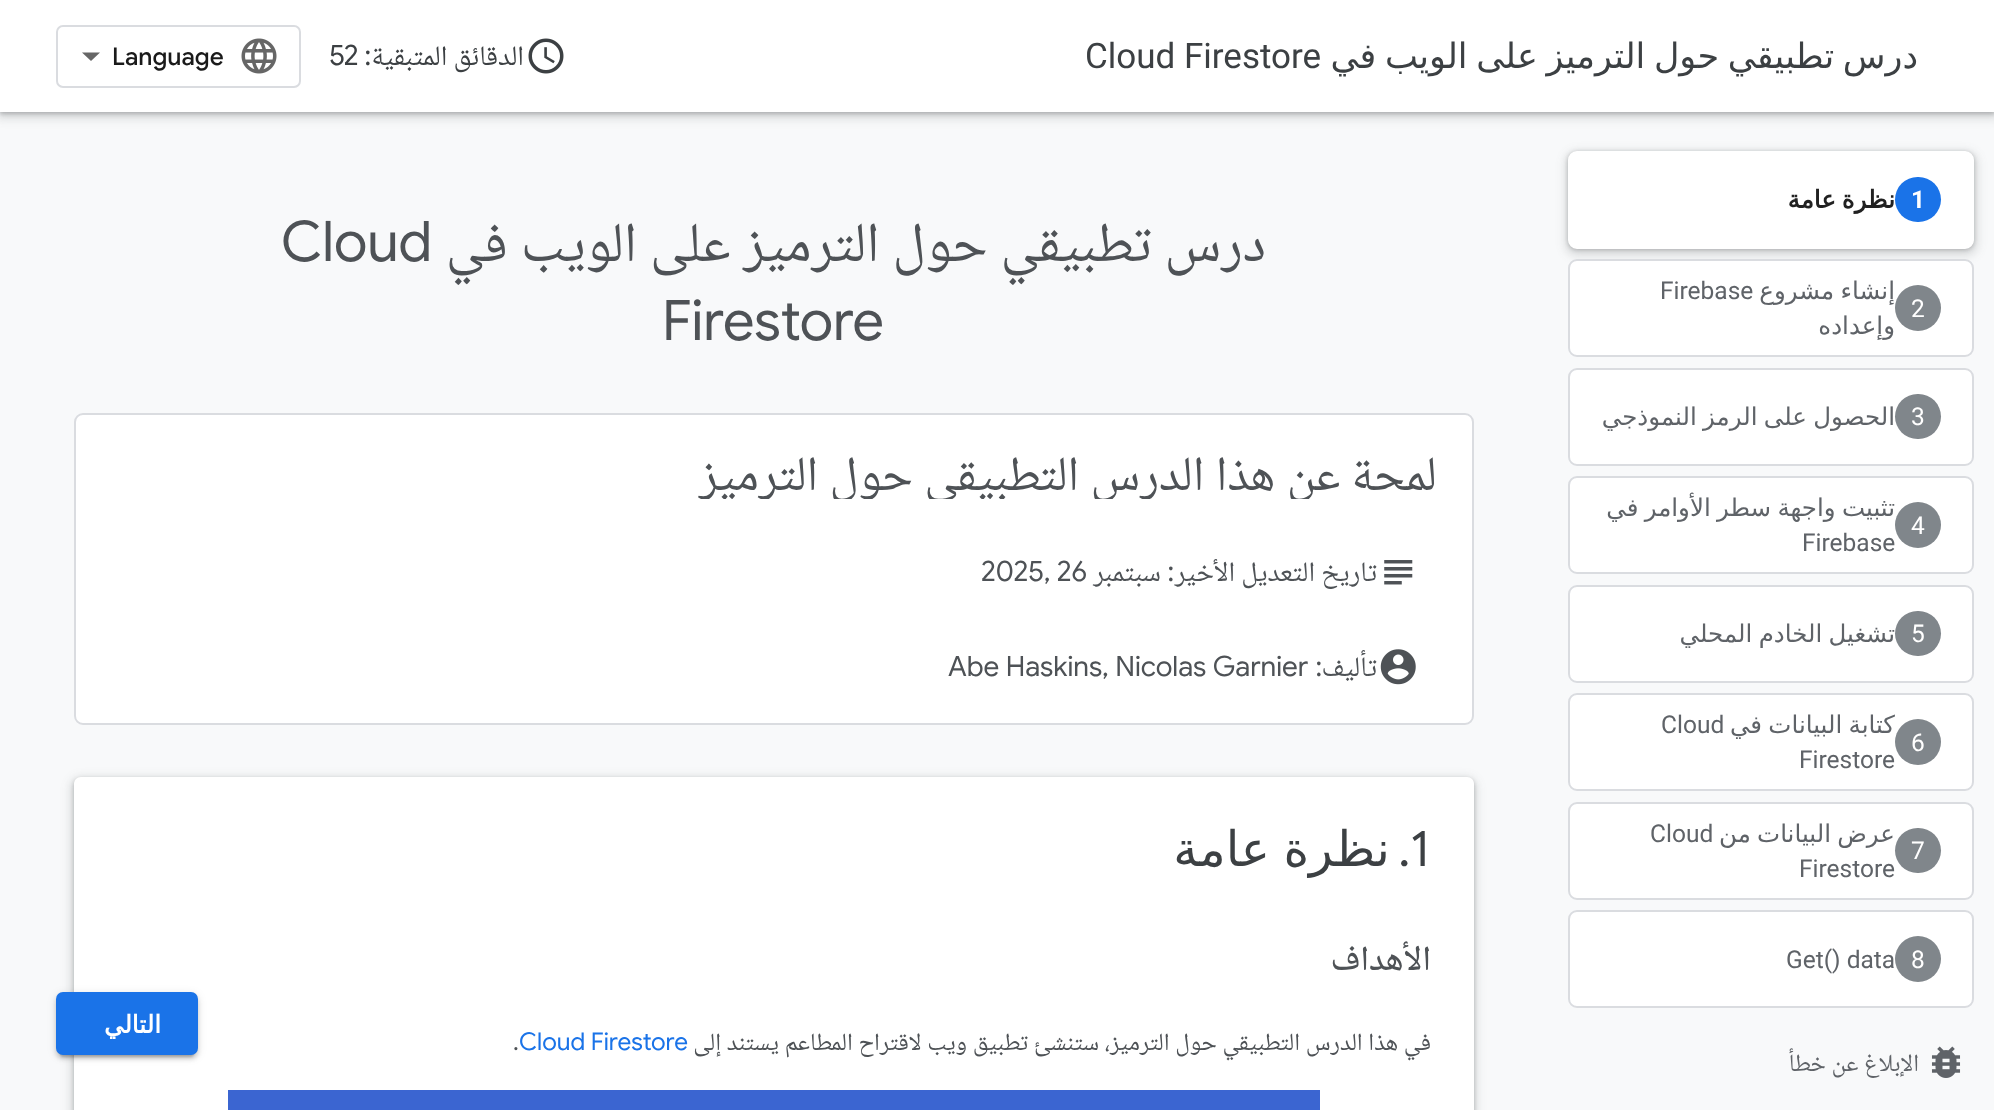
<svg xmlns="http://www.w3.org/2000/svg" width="1994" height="1110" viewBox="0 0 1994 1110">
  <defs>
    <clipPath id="clip1"><path d="M586 14h1332v84H586z"/></clipPath>
    <clipPath id="clip2"><path d="M110 450h1327v49H110z"/></clipPath>
  </defs>
  <rect width="100%" height="100%" fill="#f8f9fa"/>
  <path d="M-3 0h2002v119H-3z" fill="#3c404326" filter="blur(5px)"/>
  <path d="M0 2h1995v112H0z" fill="#3c40434d" filter="blur(2px)"/>
  <path d="M0 0h1994v112H0z" fill="#fff"/>
  <image x="528" y="38" width="36" height="36" href="img/1.png"/>
  <rect x="57" y="26" width="243" height="61" rx="6" fill="none" stroke="#dadce0" stroke-width="2"/>
  <image x="241" y="38" width="36" height="36" href="img/2.png"/>
  <path d="M91 61L82 52.5H100Z" fill="#666"/>
  <rect x="1565" y="151" width="413" height="105" rx="12" fill="#3c404326" filter="blur(5px)"/>
  <rect x="1568" y="152" width="406" height="98" rx="9" fill="#3c40434d" filter="blur(2px)"/>
  <rect x="1569" y="152" width="404" height="96" rx="8" fill="#fff" stroke="#fff" stroke-width="2"/>
  <rect x="1895" y="177" width="46" height="45" rx="22.5" fill="#1a73e8"/>
  <rect x="1569" y="260" width="404" height="96" rx="8" fill="#fff" stroke="#dadce0" stroke-width="2"/>
  <rect x="1569" y="369" width="404" height="96" rx="8" fill="#fff" stroke="#dadce0" stroke-width="2"/>
  <rect x="1569" y="477" width="404" height="96" rx="8" fill="#fff" stroke="#dadce0" stroke-width="2"/>
  <rect x="1569" y="586" width="404" height="96" rx="8" fill="#fff" stroke="#dadce0" stroke-width="2"/>
  <rect x="1569" y="694" width="404" height="96" rx="8" fill="#fff" stroke="#dadce0" stroke-width="2"/>
  <rect x="1569" y="803" width="404" height="96" rx="8" fill="#fff" stroke="#dadce0" stroke-width="2"/>
  <rect x="1569" y="911" width="404" height="96" rx="8" fill="#fff" stroke="#dadce0" stroke-width="2"/>
  <circle cx="1918" cy="959" r="23" fill="#80868b"/>
  <rect x="75" y="414" width="1398" height="310" rx="8" fill="#fff" stroke="#dadce0" stroke-width="2"/>
  <image x="1384" y="560" width="29" height="25" href="img/3.png"/>
  <image x="1380" y="649" width="36" height="36" href="img/4.png"/>
  <rect x="70" y="777" width="1407" height="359" rx="11" fill="#3c404326" filter="blur(5px)"/>
  <rect x="74" y="779" width="1400" height="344" rx="7" fill="#3c40434d" filter="blur(2px)"/>
  <path d="M81 777H1467C1471 777 1474 780 1474 784V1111H74V784C74 780 77 777 81 777Z" fill="#fff"/>
  <path d="M228 1090h1092v20H228z" fill="#3b65d1"/>
  <rect x="60" y="1001" width="134" height="56" rx="4" fill="#00000033" filter="blur(1px)"/>
  <rect x="56" y="994" width="142" height="63" rx="7" fill="#0000001f" filter="blur(4.5px)"/>
  <rect x="56" y="996" width="142" height="63" rx="7" fill="#00000024" filter="blur(2px)"/>
  <rect x="56" y="992" width="142" height="63" rx="7" fill="#1a73e8"/>
  <image x="1931" y="1046" width="30" height="32" href="img/5.png"/>
  <g clip-path="url(#clip1)">
    <text x="1918" y="68" word-spacing="-2.5" font-family="DejaVu Sans" font-size="35" direction="rtl" fill="#3c4043">درس تطبيقي حول الترميز على الويب في</text>
  </g>
  <text x="1085" y="68" font-family="Roboto" font-size="35" fill="#3c4043">Cloud Firestore</text>
  <text x="524" y="65" font-family="Noto Naskh Arabic" font-size="28" direction="rtl" fill="#3c4043">الدقائق المتبقية</text>
  <text x="371" y="65" font-family="Google Sans" font-size="28" direction="rtl" fill="#3c4043">:</text>
  <text x="329" y="65" font-family="Google Sans" font-size="28" fill="#3c4043">52</text>
  <text x="112" y="65" font-family="Google Sans" font-size="24.5" font-weight="500" fill="#1a1a1a">Language</text>
  <text x="1911" y="208" font-family="Roboto" font-size="24.5" font-weight="bold" fill="#fff">1</text>
  <text x="1895" y="208" word-spacing="-2" font-family="DejaVu Sans" font-size="24.5" font-weight="bold" direction="rtl" fill="#212121">نظرة عامة</text>
  <text x="1895" y="299" word-spacing="-1.5" font-family="DejaVu Sans" font-size="24.5" direction="rtl" fill="#5f6368">إنشاء مشروع</text>
  <circle cx="1918" cy="308" r="23" fill="#80868b"/>
  <text x="1911" y="317" font-family="Roboto" font-size="24.5" fill="#fff">2</text>
  <text x="1660" y="299" font-family="Roboto" font-size="24.5" fill="#5f6368">Firebase</text>
  <g font-family="DejaVu Sans" font-size="24.5" direction="rtl" fill="#5f6368">
    <text x="1895" y="334">وإعداده</text>
    <text x="1895" y="425" word-spacing="-1.5">الحصول على الرمز النموذجي</text>
  </g>
  <rect x="1895" y="394" width="46" height="45" rx="22.5" fill="#80868b"/>
  <text x="1911" y="425" font-family="Roboto" font-size="24.5" fill="#fff">3</text>
  <text x="1895" y="516" word-spacing="-1.5" font-family="DejaVu Sans" font-size="24.5" direction="rtl" fill="#5f6368">تثبيت واجهة سطر الأوامر في</text>
  <circle cx="1918" cy="525" r="23" fill="#80868b"/>
  <text x="1911" y="534" font-family="Roboto" font-size="24.5" fill="#fff">4</text>
  <text x="1802" y="551" font-family="Roboto" font-size="24.5" fill="#5f6368">Firebase</text>
  <text x="1895" y="642" word-spacing="-1.5" font-family="DejaVu Sans" font-size="24.5" direction="rtl" fill="#5f6368">تشغيل الخادم المحلي</text>
  <rect x="1895" y="611" width="46" height="45" rx="22.5" fill="#80868b"/>
  <text x="1911" y="642" font-family="Roboto" font-size="24.5" fill="#fff">5</text>
  <text x="1895" y="733" word-spacing="-1.5" font-family="DejaVu Sans" font-size="24.5" direction="rtl" fill="#5f6368">كتابة البيانات في</text>
  <circle cx="1918" cy="742" r="23" fill="#80868b"/>
  <text x="1911" y="751" font-family="Roboto" font-size="24.5" fill="#fff">6</text>
  <g font-family="Roboto" font-size="24.5" fill="#5f6368">
    <text x="1661" y="733">Cloud</text>
    <text x="1799" y="768">Firestore</text>
  </g>
  <text x="1895" y="842" word-spacing="-1.5" font-family="DejaVu Sans" font-size="24.5" direction="rtl" fill="#5f6368">عرض البيانات من</text>
  <rect x="1895" y="828" width="46" height="45" rx="22.5" fill="#80868b"/>
  <text x="1911" y="859" font-family="Roboto" font-size="24.5" fill="#fff">7</text>
  <g font-family="Roboto" font-size="24.5" fill="#5f6368">
    <text x="1650" y="842">Cloud</text>
    <text x="1799" y="877">Firestore</text>
  </g>
  <text x="1911" y="968" font-family="Roboto" font-size="24.5" fill="#fff">8</text>
  <text x="1786" y="968" font-family="Roboto" font-size="24.5" fill="#5f6368">Get() data</text>
  <text x="1266" y="261" word-spacing="0.5" font-family="Noto Naskh Arabic" font-size="56" direction="rtl" fill="#4e5256">درس تطبيقي حول الترميز على الويب في</text>
  <g font-family="Google Sans" font-size="56" fill="#4e5256">
    <text x="281" y="261">Cloud</text>
    <text x="662" y="340">Firestore</text>
  </g>
  <g clip-path="url(#clip2)">
    <text x="1437" y="490" word-spacing="0.5" font-family="Noto Naskh Arabic" font-size="49" direction="rtl" fill="#4e5256">لمحة عن هذا الدرس التطبيقي حول الترميز</text>
  </g>
  <text x="1377" y="581" font-family="Noto Naskh Arabic" font-size="28" direction="rtl" fill="#4e5256">تاريخ التعديل الأخير</text>
  <text x="1174" y="581" font-family="Google Sans" font-size="28" direction="rtl" fill="#4e5256">:</text>
  <text x="1161" y="581" font-family="Noto Naskh Arabic" font-size="28" direction="rtl" fill="#4e5256">سبتمبر</text>
  <text x="981" y="581" font-family="Google Sans" font-size="28" fill="#4e5256">2025, 26</text>
  <text x="1377" y="676" font-family="Noto Naskh Arabic" font-size="28" direction="rtl" fill="#4e5256">تأليف</text>
  <text x="1322" y="676" font-family="Google Sans" font-size="28" direction="rtl" fill="#4e5256">:</text>
  <text x="948" y="676" font-family="Google Sans" font-size="28" fill="#4e5256">Abe Haskins, Nicolas Garnier</text>
  <text x="1410" y="866" font-family="Google Sans" font-size="49" fill="#3c4043">1</text>
  <text x="1410" y="866" font-family="Google Sans" font-size="49" direction="rtl" fill="#3c4043">.</text>
  <text x="1390" y="866" word-spacing="-2" font-family="DejaVu Sans" font-size="49" direction="rtl" fill="#3c4043">نظرة عامة</text>
  <text x="1431" y="970" font-family="Noto Naskh Arabic" font-size="35" font-weight="500" direction="rtl" fill="#4e5256">الأهداف</text>
  <text x="1431" y="1050" word-spacing="0.25" font-family="Noto Naskh Arabic" font-size="24.5" direction="rtl" fill="#4e5256">في هذا الدرس التطبيقي حول الترميز، ستنشئ تطبيق ويب لاقتراح المطاعم يستند إلى</text>
  <text x="519" y="1050" font-family="Google Sans" font-size="24.5" fill="#1a73e8">Cloud Firestore</text>
  <text x="513" y="1050" font-family="Google Sans" font-size="24.5" fill="#4e5256">.</text>
  <text x="161" y="1033" font-family="DejaVu Sans" font-size="24.5" font-weight="bold" letter-spacing="1" direction="rtl" fill="#fff">التالي</text>
  <text x="1919" y="1071" word-spacing="0.25" font-family="Noto Naskh Arabic" font-size="24.5" direction="rtl" fill="#5f6368">الإبلاغ عن خطأ</text>
</svg>
